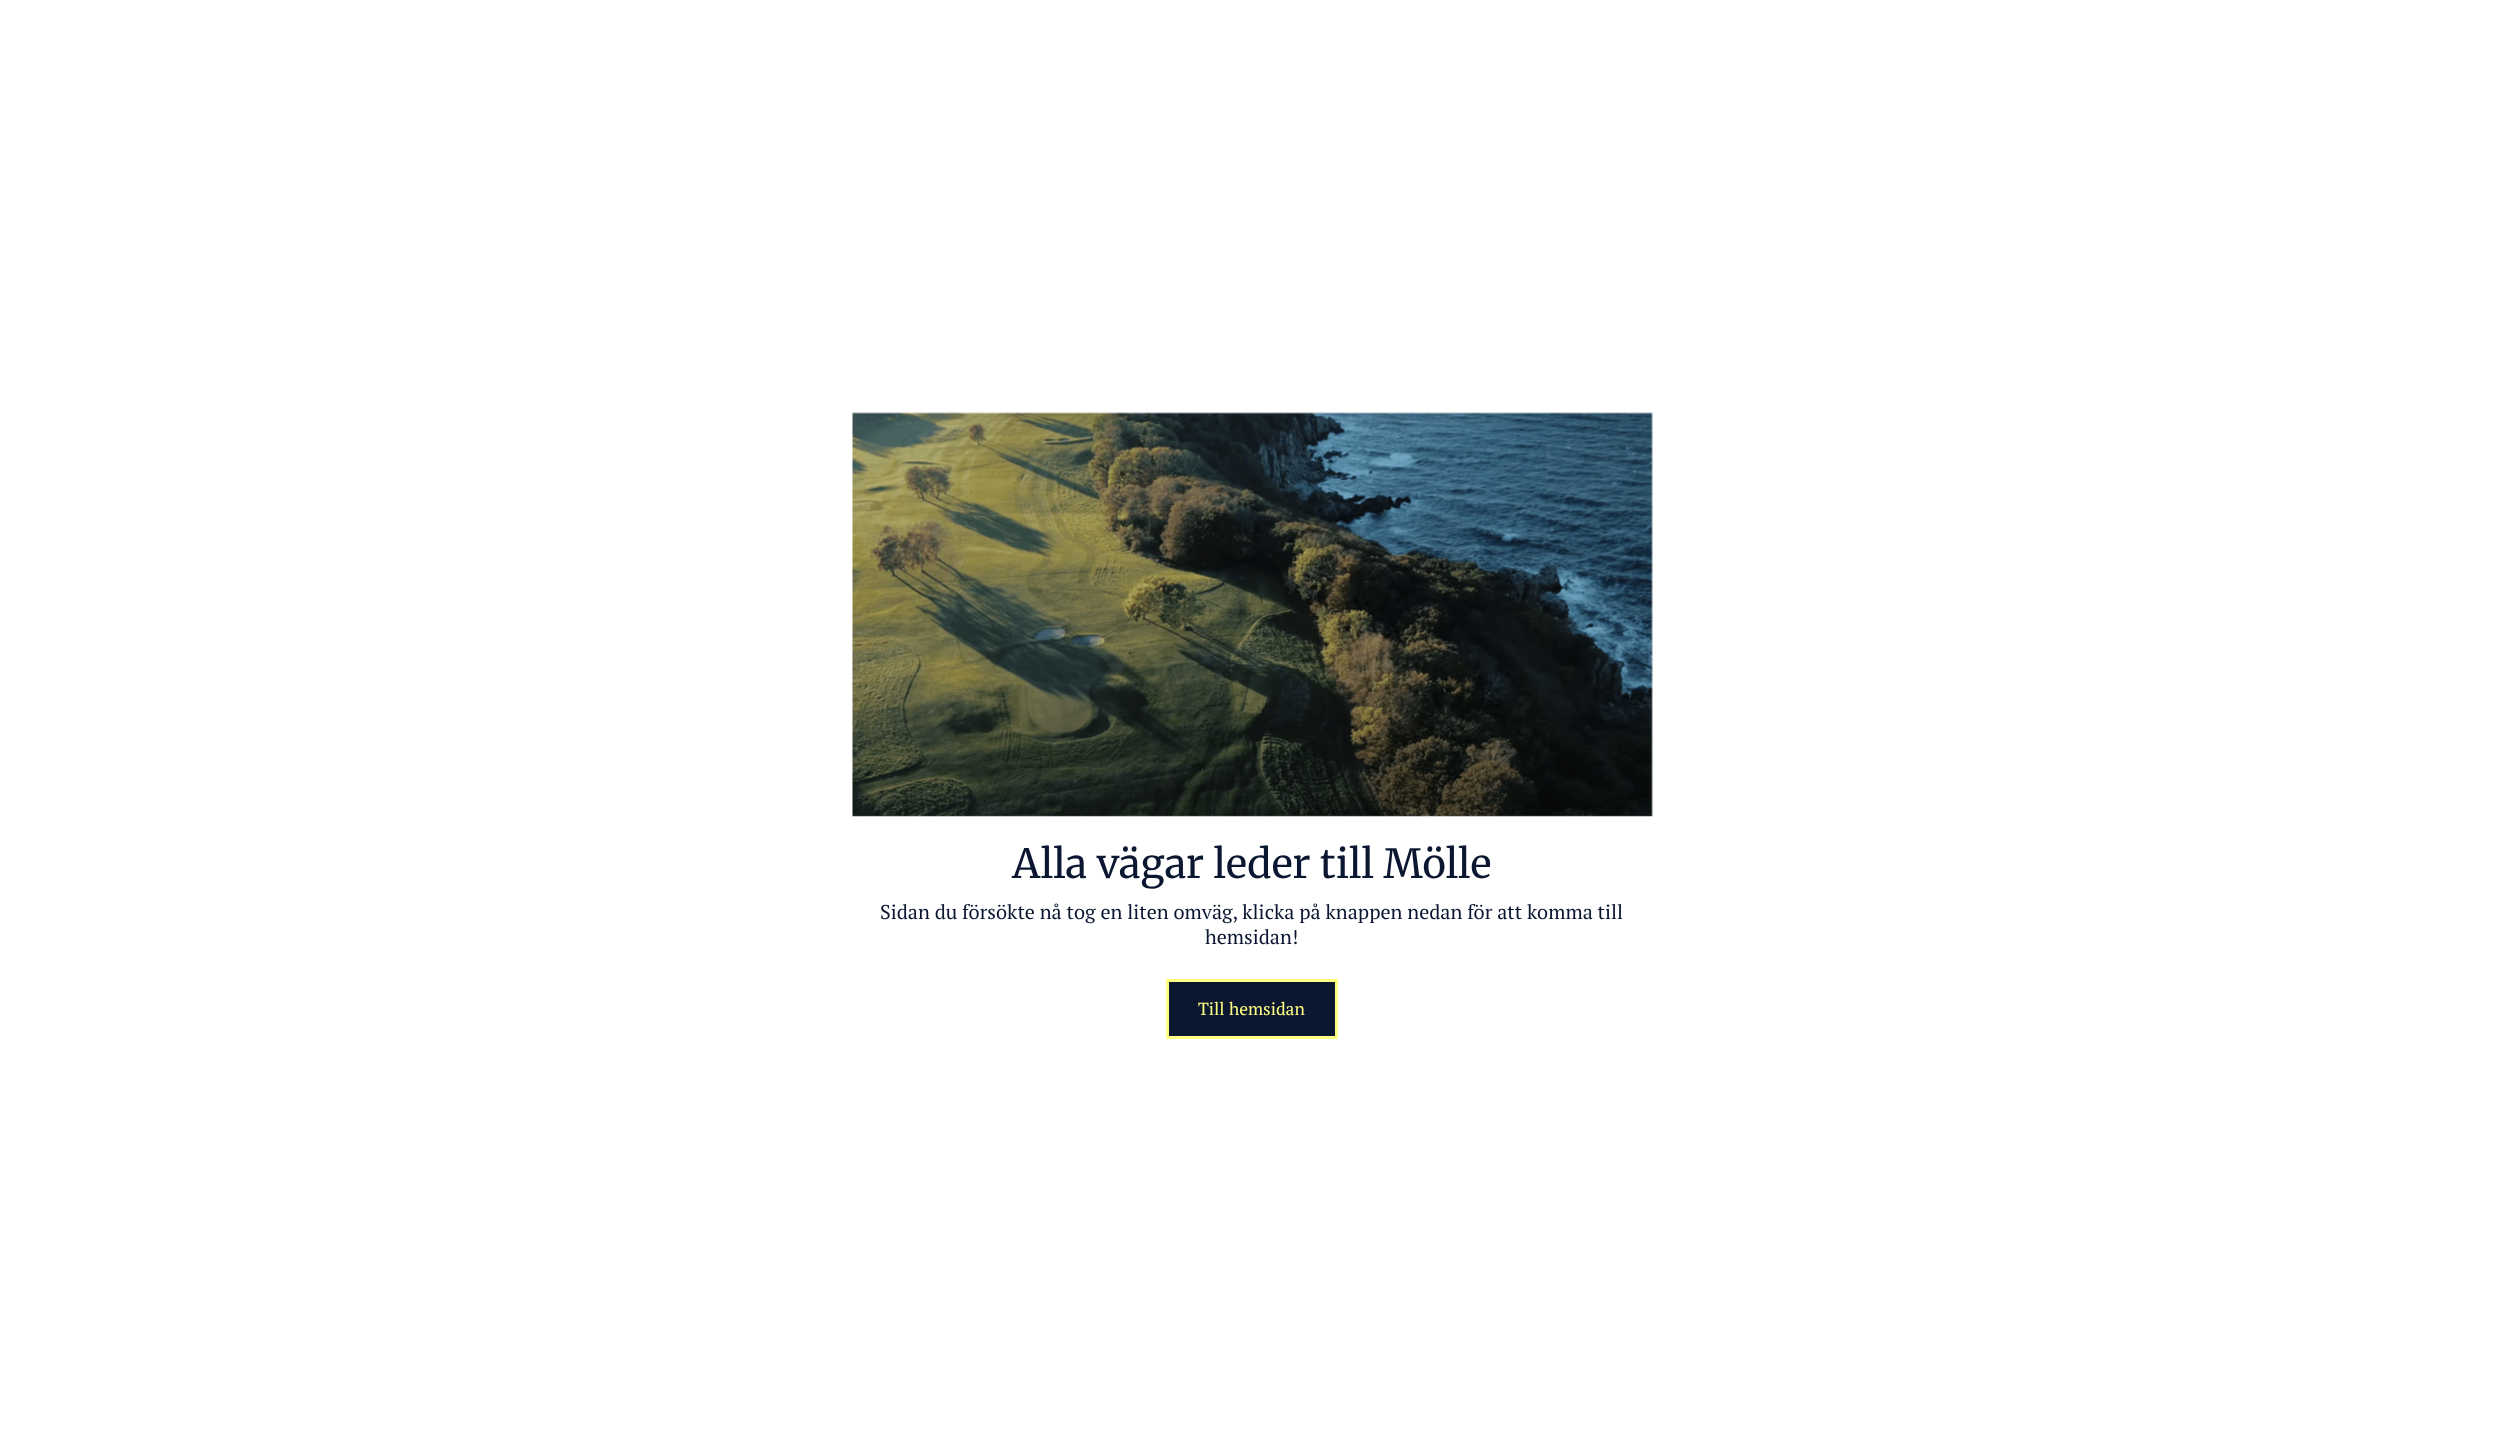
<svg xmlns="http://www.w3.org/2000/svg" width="2503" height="1451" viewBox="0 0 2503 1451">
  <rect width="100%" height="100%" fill="#fff"/>
  <image x="852" y="412" width="801" height="405" href="img/1.png"/>
  <path d="M1167.5 980.5h169v57H1167.5z" fill="#0b1731" stroke="#ffff81" stroke-width="3"/>
  <text x="1012" y="878" font-family="Merriweather" font-size="40" fill="#0b1731">Alla vägar leder till Mölle</text>
  <g font-family="PT Serif" font-size="20" fill="#0b1731">
    <text x="880" y="919">Sidan du försökte nå tog en liten omväg, klicka på knappen nedan för att komma till</text>
    <text x="1205" y="944">hemsidan!</text>
  </g>
  <text x="1198" y="1015" font-family="PT Serif" font-size="17.5" fill="#ffff81">Till hemsidan</text>
</svg>
